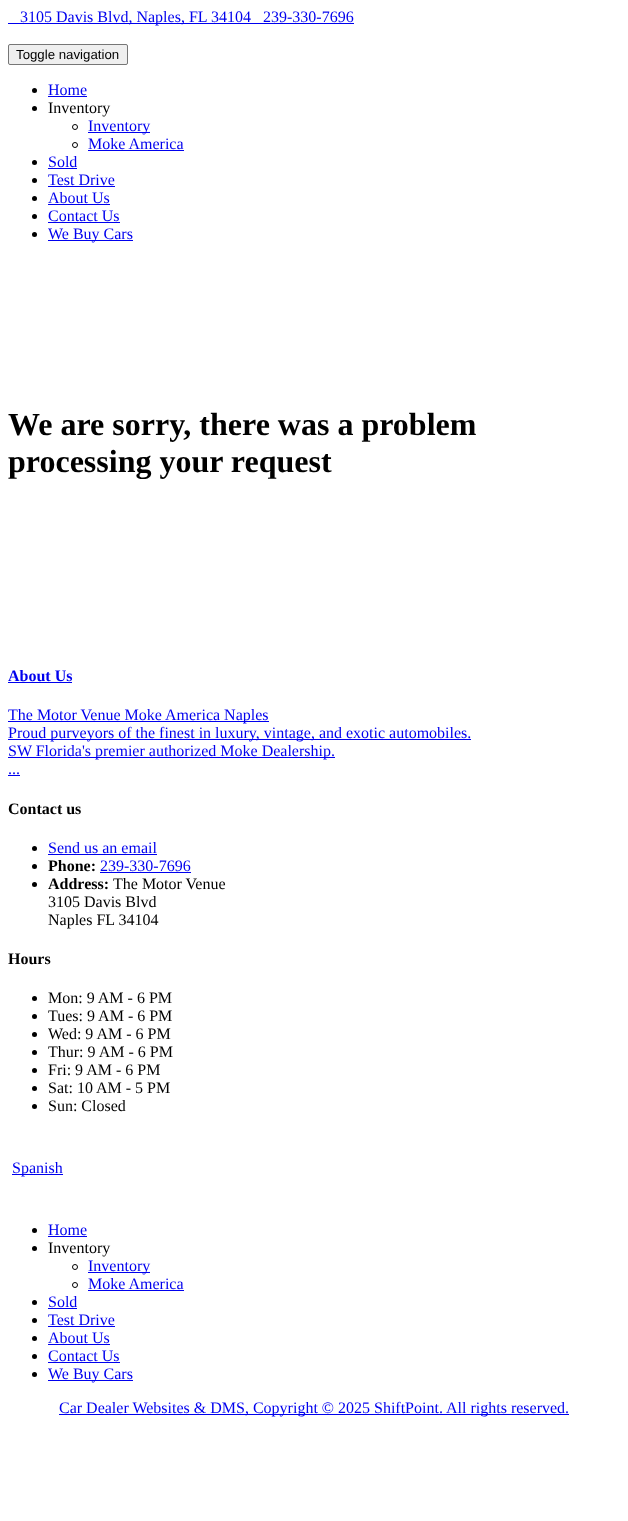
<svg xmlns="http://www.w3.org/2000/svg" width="628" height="1521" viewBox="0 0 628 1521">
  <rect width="100%" height="100%" fill="#fff"/>
  <path d="M8 23h346v1H8z" fill="#00e"/>
  <rect x="8.5" y="44.5" width="119" height="20" rx="1.5" fill="#efefef" stroke="#767676"/>
  <circle cx="34.5" cy="90.5" r="2.5" fill="#000"/>
  <path d="M48 96h39v1H48z" fill="#00e"/>
  <circle cx="34.5" cy="108.5" r="2.5" fill="#000"/>
  <circle cx="75" cy="127" r="2.5" fill="none" stroke="#000"/>
  <path d="M88 132h62v1H88z" fill="#00e"/>
  <circle cx="75" cy="145" r="2.5" fill="none" stroke="#000"/>
  <path d="M88 150h96v1H88z" fill="#00e"/>
  <circle cx="34.5" cy="162.5" r="2.5" fill="#000"/>
  <path d="M48 168h29v1H48z" fill="#00e"/>
  <circle cx="34.5" cy="180.5" r="2.5" fill="#000"/>
  <path d="M48 186h67v1H48z" fill="#00e"/>
  <circle cx="34.5" cy="198.5" r="2.5" fill="#000"/>
  <path d="M48 204h62v1H48z" fill="#00e"/>
  <circle cx="34.5" cy="216.5" r="2.5" fill="#000"/>
  <path d="M48 222h72v1H48z" fill="#00e"/>
  <circle cx="34.5" cy="234.5" r="2.5" fill="#000"/>
  <path d="M48 240h85v1H48z" fill="#00e"/>
  <path d="M8 682h64v1H8z" fill="#00e"/>
  <path d="M8 721h261v1H8z" fill="#00e"/>
  <path d="M8 739h463v1H8z" fill="#00e"/>
  <path d="M8 757h327v1H8z" fill="#00e"/>
  <path d="M8 775h12v1H8z" fill="#00e"/>
  <circle cx="34.5" cy="848.5" r="2.5" fill="#000"/>
  <path d="M48 854h109v1H48z" fill="#00e"/>
  <circle cx="34.5" cy="866.5" r="2.5" fill="#000"/>
  <path d="M100 872h91v1H100z" fill="#00e"/>
  <circle cx="34.5" cy="884.5" r="2.5" fill="#000"/>
  <circle cx="34.5" cy="998.5" r="2.5" fill="#000"/>
  <circle cx="34.5" cy="1016.5" r="2.5" fill="#000"/>
  <circle cx="34.5" cy="1034.5" r="2.5" fill="#000"/>
  <circle cx="34.5" cy="1052.5" r="2.5" fill="#000"/>
  <circle cx="34.5" cy="1070.5" r="2.5" fill="#000"/>
  <circle cx="34.5" cy="1088.5" r="2.5" fill="#000"/>
  <circle cx="34.5" cy="1106.5" r="2.5" fill="#000"/>
  <path d="M12 1174h51v1H12z" fill="#00e"/>
  <circle cx="34.5" cy="1230.5" r="2.5" fill="#000"/>
  <path d="M48 1236h39v1H48z" fill="#00e"/>
  <circle cx="34.5" cy="1248.5" r="2.5" fill="#000"/>
  <circle cx="75" cy="1267" r="2.5" fill="none" stroke="#000"/>
  <path d="M88 1272h62v1H88z" fill="#00e"/>
  <circle cx="75" cy="1285" r="2.5" fill="none" stroke="#000"/>
  <path d="M88 1290h96v1H88z" fill="#00e"/>
  <circle cx="34.5" cy="1302.5" r="2.5" fill="#000"/>
  <path d="M48 1308h29v1H48z" fill="#00e"/>
  <circle cx="34.5" cy="1320.5" r="2.5" fill="#000"/>
  <path d="M48 1326h67v1H48z" fill="#00e"/>
  <circle cx="34.5" cy="1338.5" r="2.5" fill="#000"/>
  <path d="M48 1344h62v1H48z" fill="#00e"/>
  <circle cx="34.5" cy="1356.5" r="2.5" fill="#000"/>
  <path d="M48 1362h72v1H48z" fill="#00e"/>
  <circle cx="34.5" cy="1374.5" r="2.5" fill="#000"/>
  <path d="M48 1380h85v1H48z" fill="#00e"/>
  <path d="M59 1414h510v1H59z" fill="#00e"/>
  <g font-family="Liberation Serif" font-size="16" fill="#00e">
    <text x="20" y="22">3105 Davis Blvd, Naples, FL 34104</text>
    <text x="263" y="22">239-330-7696</text>
  </g>
  <text x="16" y="59" font-family="Liberation Sans" font-size="13.25" fill="#000">Toggle navigation</text>
  <text x="48" y="95" font-family="Liberation Serif" font-size="16" fill="#00e">Home</text>
  <text x="48" y="113" font-family="Liberation Serif" font-size="16" fill="#000">Inventory</text>
  <g font-family="Liberation Serif" font-size="16" fill="#00e">
    <text x="88" y="131">Inventory</text>
    <text x="88" y="149">Moke America</text>
    <text x="48" y="167">Sold</text>
    <text x="48" y="185">Test Drive</text>
    <text x="48" y="203">About Us</text>
    <text x="48" y="221">Contact Us</text>
    <text x="48" y="239">We Buy Cars</text>
  </g>
  <g font-family="Liberation Serif" font-size="32" font-weight="bold" fill="#000">
    <text x="8" y="435">We are sorry, there was a problem</text>
    <text x="8" y="472">processing your request</text>
  </g>
  <text x="8" y="681" font-family="Liberation Serif" font-size="16" font-weight="bold" fill="#00e">About Us</text>
  <g font-family="Liberation Serif" font-size="16" fill="#00e">
    <text x="8" y="720">The Motor Venue Moke America Naples</text>
    <text x="8" y="738">Proud purveyors of the finest in luxury, vintage, and exotic automobiles.</text>
    <text x="8" y="756">SW Florida's premier authorized Moke Dealership.</text>
    <text x="8" y="774">...</text>
  </g>
  <text x="8" y="814" font-family="Liberation Serif" font-size="16" font-weight="bold" fill="#000">Contact us</text>
  <text x="48" y="853" font-family="Liberation Serif" font-size="16" fill="#00e">Send us an email</text>
  <text x="48" y="871" font-family="Liberation Serif" font-size="16" font-weight="bold" fill="#000">Phone:</text>
  <text x="100" y="871" font-family="Liberation Serif" font-size="16" fill="#00e">239-330-7696</text>
  <text x="48" y="889" font-family="Liberation Serif" font-size="16" font-weight="bold" fill="#000">Address:</text>
  <g font-family="Liberation Serif" font-size="16" fill="#000">
    <text x="113" y="889">The Motor Venue</text>
    <text x="48" y="907">3105 Davis Blvd</text>
    <text x="48" y="925">Naples FL 34104</text>
  </g>
  <text x="8" y="964" font-family="Liberation Serif" font-size="16" font-weight="bold" fill="#000">Hours</text>
  <g font-family="Liberation Serif" font-size="16" fill="#000">
    <text x="48" y="1003">Mon: 9 AM - 6 PM</text>
    <text x="48" y="1021">Tues: 9 AM - 6 PM</text>
    <text x="48" y="1039">Wed: 9 AM - 6 PM</text>
    <text x="48" y="1057">Thur: 9 AM - 6 PM</text>
    <text x="48" y="1075">Fri: 9 AM - 6 PM</text>
    <text x="48" y="1093">Sat: 10 AM - 5 PM</text>
    <text x="48" y="1111">Sun: Closed</text>
  </g>
  <g font-family="Liberation Serif" font-size="16" fill="#00e">
    <text x="12" y="1173">Spanish</text>
    <text x="48" y="1235">Home</text>
  </g>
  <text x="48" y="1253" font-family="Liberation Serif" font-size="16" fill="#000">Inventory</text>
  <g font-family="Liberation Serif" font-size="16" fill="#00e">
    <text x="88" y="1271">Inventory</text>
    <text x="88" y="1289">Moke America</text>
    <text x="48" y="1307">Sold</text>
    <text x="48" y="1325">Test Drive</text>
    <text x="48" y="1343">About Us</text>
    <text x="48" y="1361">Contact Us</text>
    <text x="48" y="1379">We Buy Cars</text>
    <text x="59" y="1413">Car Dealer Websites &amp; DMS, Copyright © 2025 ShiftPoint. All rights reserved.</text>
  </g>
</svg>
